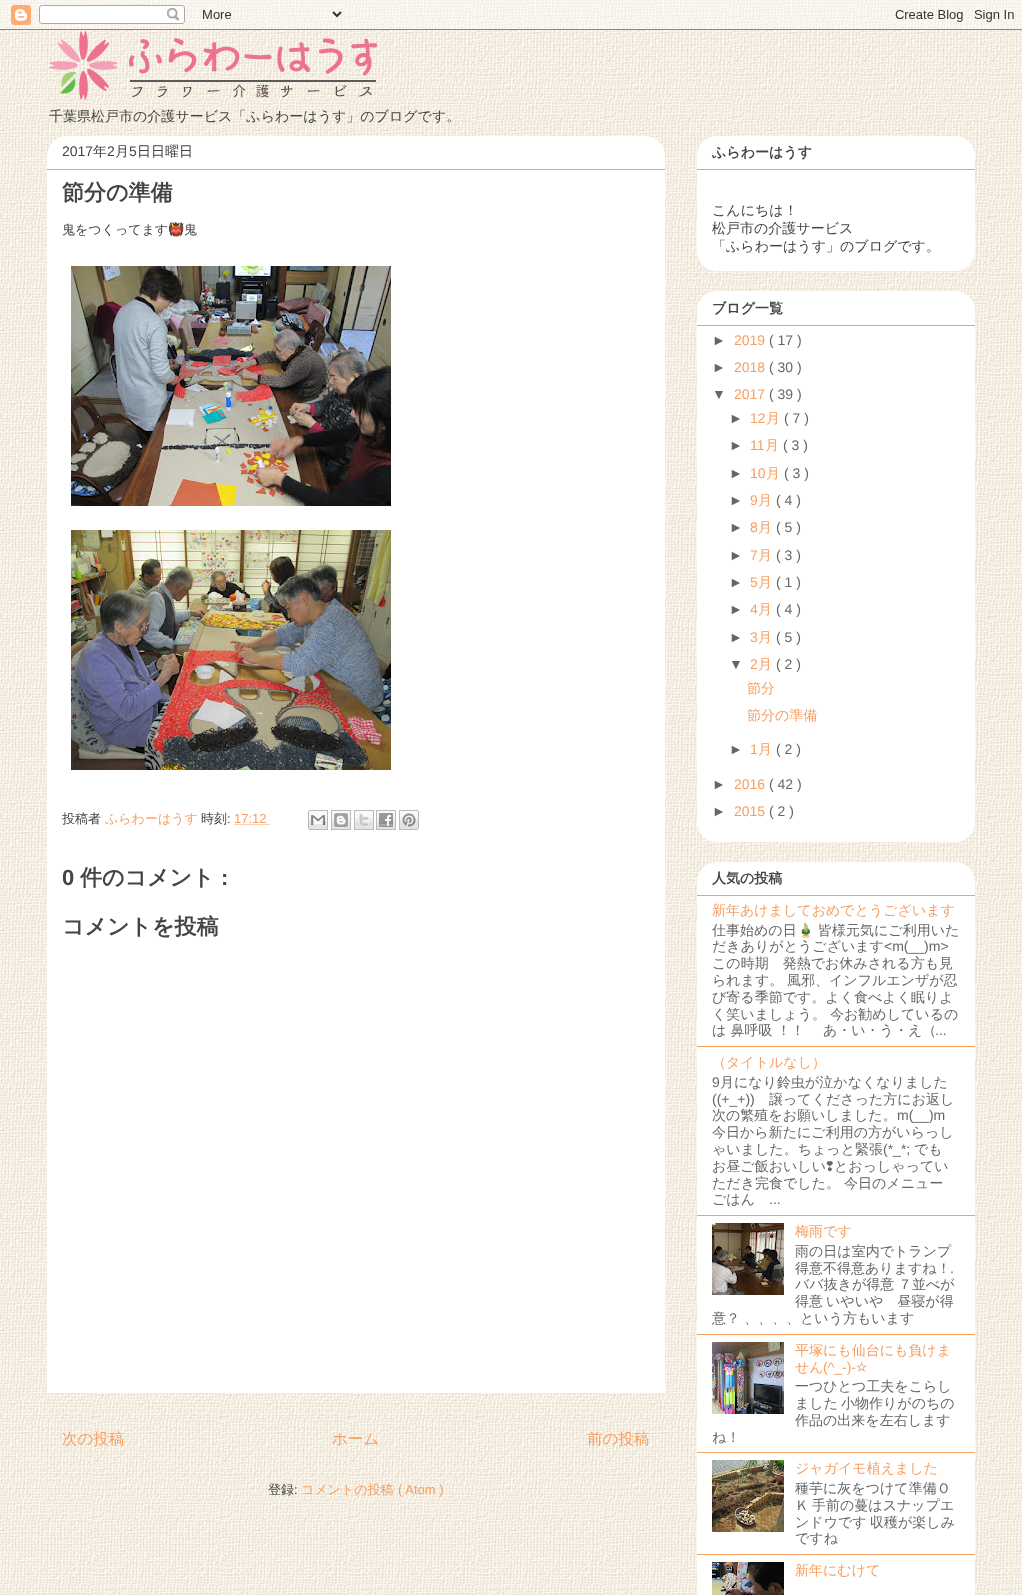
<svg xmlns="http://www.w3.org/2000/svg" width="1022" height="1595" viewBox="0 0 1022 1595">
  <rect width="100%" height="100%" fill="#fff"/>
  <image x="0" y="0" width="1022" height="1595" href="img/1.png"/>
  <image x="0" y="0" width="1022" height="30" href="img/2.png"/>
  <image x="49" y="31" width="328" height="69" href="img/3.png"/>
  <path d="M67 136H645C656 136 665 145 665 156V1393H47V156C47 145 56 136 67 136Z" fill="#fff"/>
  <path d="M47 169h618v1H47z" fill="#f79e61"/>
  <image x="71" y="266" width="320" height="240" href="img/4.png"/>
  <image x="71" y="530" width="320" height="240" href="img/5.png"/>
  <path d="M234.5 824.5H270.5" fill="none" stroke="#f79e61" stroke-dasharray="1 1"/>
  <image x="308" y="810" width="20" height="20" href="img/6.png"/>
  <image x="331" y="810" width="20" height="20" href="img/7.png"/>
  <image x="354" y="810" width="20" height="20" href="img/8.png"/>
  <image x="376" y="810" width="20" height="20" href="img/9.png"/>
  <image x="399" y="810" width="20" height="20" href="img/10.png"/>
  <rect x="697" y="136" width="278" height="135" rx="20" fill="#fff"/>
  <path d="M697 169h278v1H697z" fill="#f79e61"/>
  <rect x="697" y="291" width="278" height="551" rx="20" fill="#fff"/>
  <path d="M697 325h278v1H697z" fill="#f79e61"/>
  <rect x="697" y="862" width="278" height="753" rx="20" fill="#fff"/>
  <path d="M697 895h278v1H697z" fill="#f79e61"/>
  <path d="M697 1046h278v1H697z" fill="#f79e61"/>
  <path d="M697 1215h278v1H697z" fill="#f79e61"/>
  <image x="712" y="1223" width="72" height="72" href="img/11.png"/>
  <path d="M697 1334h278v1H697z" fill="#f79e61"/>
  <image x="712" y="1342" width="72" height="72" href="img/12.png"/>
  <path d="M697 1452h278v1H697z" fill="#f79e61"/>
  <image x="712" y="1460" width="72" height="72" href="img/13.png"/>
  <path d="M697 1554h278v1H697z" fill="#f79e61"/>
  <image x="712" y="1562" width="72" height="33" href="img/14.png"/>
  <text x="49" y="121" font-family="WenQuanYi Zen Hei" font-size="14" font-weight="500" fill="#444">千葉県松戸市の介護サービス「ふらわーはうす」のブログです。</text>
  <text x="62" y="156" font-family="Liberation Sans" font-size="14" fill="#444">2017</text>
  <text x="93" y="156" font-family="WenQuanYi Zen Hei" font-size="14" font-weight="500" fill="#444">年</text>
  <text x="107" y="156" font-family="Liberation Sans" font-size="14" fill="#444">2</text>
  <text x="115" y="156" font-family="WenQuanYi Zen Hei" font-size="14" font-weight="500" fill="#444">月</text>
  <text x="129" y="156" font-family="Liberation Sans" font-size="14" fill="#444">5</text>
  <text x="137" y="156" font-family="WenQuanYi Zen Hei" font-size="14" font-weight="500" fill="#444">日日曜日</text>
  <text x="62" y="200" font-family="WenQuanYi Zen Hei" font-size="22" font-weight="bold" fill="#444">節分の準備</text>
  <text x="62" y="234" font-family="WenQuanYi Zen Hei" font-size="13" font-weight="500" fill="#444">鬼をつくってます</text>
  <text x="168" y="234" font-family="Noto Color Emoji" font-size="13" fill="#444">👹</text>
  <g font-family="WenQuanYi Zen Hei" font-size="13" font-weight="500" fill="#444">
    <text x="184" y="234">鬼</text>
    <text x="62" y="823">投稿者</text>
  </g>
  <text x="105" y="823" font-family="WenQuanYi Zen Hei" font-size="13" font-weight="500" fill="#f79e61">ふらわーはうす</text>
  <text x="201" y="823" font-family="WenQuanYi Zen Hei" font-size="13" font-weight="500" fill="#444">時刻</text>
  <text x="227" y="823" font-family="Liberation Sans" font-size="13" fill="#444">:</text>
  <text x="234" y="823" font-family="Liberation Sans" font-size="13" fill="#f79e61">17:12</text>
  <text x="62" y="885" font-family="Liberation Sans" font-size="22" font-weight="bold" fill="#444">0</text>
  <text x="80" y="885" font-family="WenQuanYi Zen Hei" font-size="22" font-weight="bold" fill="#444">件のコメント</text>
  <text x="221" y="885" font-family="Liberation Sans" font-size="22" font-weight="bold" fill="#444">:</text>
  <text x="62" y="934" font-family="WenQuanYi Zen Hei" font-size="22" font-weight="bold" fill="#444">コメントを投稿</text>
  <g font-family="WenQuanYi Zen Hei" font-size="15.5" font-weight="500" fill="#f79e61">
    <text x="62" y="1444">次の投稿</text>
    <text x="332" y="1444">ホーム</text>
    <text x="587" y="1444">前の投稿</text>
  </g>
  <text x="268" y="1494" font-family="WenQuanYi Zen Hei" font-size="13" font-weight="500" fill="#444">登録</text>
  <text x="294" y="1494" font-family="Liberation Sans" font-size="13" fill="#444">:</text>
  <text x="301" y="1494" font-family="WenQuanYi Zen Hei" font-size="13" font-weight="500" fill="#f79e61">コメントの投稿</text>
  <text x="398" y="1494" font-family="Liberation Sans" font-size="13" fill="#f79e61">( Atom )</text>
  <text x="712" y="157" font-family="WenQuanYi Zen Hei" font-size="14" font-weight="bold" fill="#444">ふらわーはうす</text>
  <g font-family="WenQuanYi Zen Hei" font-size="14" font-weight="500" fill="#444">
    <text x="712" y="215">こんにちは！</text>
    <text x="712" y="233">松戸市の介護サービス</text>
    <text x="712" y="251">「ふらわーはうす」のブログです。</text>
  </g>
  <text x="712" y="313" font-family="WenQuanYi Zen Hei" font-size="14" font-weight="bold" fill="#444">ブログ一覧</text>
  <text x="712" y="345" font-family="Liberation Sans" font-size="14" fill="#666">►</text>
  <text x="734" y="345" font-family="Liberation Sans" font-size="14" fill="#f79e61">2019</text>
  <g font-family="Liberation Sans" font-size="14" fill="#666">
    <text x="769" y="345">( 17 )</text>
    <text x="712" y="372">►</text>
  </g>
  <text x="734" y="372" font-family="Liberation Sans" font-size="14" fill="#f79e61">2018</text>
  <g font-family="Liberation Sans" font-size="14" fill="#666">
    <text x="769" y="372">( 30 )</text>
    <text x="712" y="399">▼</text>
  </g>
  <text x="734" y="399" font-family="Liberation Sans" font-size="14" fill="#f79e61">2017</text>
  <g font-family="Liberation Sans" font-size="14" fill="#666">
    <text x="769" y="399">( 39 )</text>
    <text x="729" y="423">►</text>
  </g>
  <text x="750" y="423" font-family="Liberation Sans" font-size="14" fill="#f79e61">12</text>
  <text x="766" y="423" font-family="WenQuanYi Zen Hei" font-size="14" font-weight="500" fill="#f79e61">月</text>
  <g font-family="Liberation Sans" font-size="14" fill="#666">
    <text x="784" y="423">( 7 )</text>
    <text x="729" y="450">►</text>
  </g>
  <text x="750" y="450" font-family="Liberation Sans" font-size="14" fill="#f79e61">11</text>
  <text x="765" y="450" font-family="WenQuanYi Zen Hei" font-size="14" font-weight="500" fill="#f79e61">月</text>
  <g font-family="Liberation Sans" font-size="14" fill="#666">
    <text x="783" y="450">( 3 )</text>
    <text x="729" y="478">►</text>
  </g>
  <text x="750" y="478" font-family="Liberation Sans" font-size="14" fill="#f79e61">10</text>
  <text x="766" y="478" font-family="WenQuanYi Zen Hei" font-size="14" font-weight="500" fill="#f79e61">月</text>
  <g font-family="Liberation Sans" font-size="14" fill="#666">
    <text x="784" y="478">( 3 )</text>
    <text x="729" y="505">►</text>
  </g>
  <text x="750" y="505" font-family="Liberation Sans" font-size="14" fill="#f79e61">9</text>
  <text x="758" y="505" font-family="WenQuanYi Zen Hei" font-size="14" font-weight="500" fill="#f79e61">月</text>
  <g font-family="Liberation Sans" font-size="14" fill="#666">
    <text x="776" y="505">( 4 )</text>
    <text x="729" y="532">►</text>
  </g>
  <text x="750" y="532" font-family="Liberation Sans" font-size="14" fill="#f79e61">8</text>
  <text x="758" y="532" font-family="WenQuanYi Zen Hei" font-size="14" font-weight="500" fill="#f79e61">月</text>
  <g font-family="Liberation Sans" font-size="14" fill="#666">
    <text x="776" y="532">( 5 )</text>
    <text x="729" y="560">►</text>
  </g>
  <text x="750" y="560" font-family="Liberation Sans" font-size="14" fill="#f79e61">7</text>
  <text x="758" y="560" font-family="WenQuanYi Zen Hei" font-size="14" font-weight="500" fill="#f79e61">月</text>
  <g font-family="Liberation Sans" font-size="14" fill="#666">
    <text x="776" y="560">( 3 )</text>
    <text x="729" y="587">►</text>
  </g>
  <text x="750" y="587" font-family="Liberation Sans" font-size="14" fill="#f79e61">5</text>
  <text x="758" y="587" font-family="WenQuanYi Zen Hei" font-size="14" font-weight="500" fill="#f79e61">月</text>
  <g font-family="Liberation Sans" font-size="14" fill="#666">
    <text x="776" y="587">( 1 )</text>
    <text x="729" y="614">►</text>
  </g>
  <text x="750" y="614" font-family="Liberation Sans" font-size="14" fill="#f79e61">4</text>
  <text x="758" y="614" font-family="WenQuanYi Zen Hei" font-size="14" font-weight="500" fill="#f79e61">月</text>
  <g font-family="Liberation Sans" font-size="14" fill="#666">
    <text x="776" y="614">( 4 )</text>
    <text x="729" y="642">►</text>
  </g>
  <text x="750" y="642" font-family="Liberation Sans" font-size="14" fill="#f79e61">3</text>
  <text x="758" y="642" font-family="WenQuanYi Zen Hei" font-size="14" font-weight="500" fill="#f79e61">月</text>
  <g font-family="Liberation Sans" font-size="14" fill="#666">
    <text x="776" y="642">( 5 )</text>
    <text x="729" y="669">▼</text>
  </g>
  <text x="750" y="669" font-family="Liberation Sans" font-size="14" fill="#f79e61">2</text>
  <text x="758" y="669" font-family="WenQuanYi Zen Hei" font-size="14" font-weight="500" fill="#f79e61">月</text>
  <text x="776" y="669" font-family="Liberation Sans" font-size="14" fill="#666">( 2 )</text>
  <g font-family="WenQuanYi Zen Hei" font-size="14" font-weight="500" fill="#f79e61">
    <text x="747" y="693">節分</text>
    <text x="747" y="720">節分の準備</text>
  </g>
  <text x="729" y="754" font-family="Liberation Sans" font-size="14" fill="#666">►</text>
  <text x="750" y="754" font-family="Liberation Sans" font-size="14" fill="#f79e61">1</text>
  <text x="758" y="754" font-family="WenQuanYi Zen Hei" font-size="14" font-weight="500" fill="#f79e61">月</text>
  <g font-family="Liberation Sans" font-size="14" fill="#666">
    <text x="776" y="754">( 2 )</text>
    <text x="712" y="789">►</text>
  </g>
  <text x="734" y="789" font-family="Liberation Sans" font-size="14" fill="#f79e61">2016</text>
  <g font-family="Liberation Sans" font-size="14" fill="#666">
    <text x="769" y="789">( 42 )</text>
    <text x="712" y="816">►</text>
  </g>
  <text x="734" y="816" font-family="Liberation Sans" font-size="14" fill="#f79e61">2015</text>
  <text x="769" y="816" font-family="Liberation Sans" font-size="14" fill="#666">( 2 )</text>
  <text x="712" y="883" font-family="WenQuanYi Zen Hei" font-size="14" font-weight="bold" fill="#444">人気の投稿</text>
  <text x="712" y="915" font-family="WenQuanYi Zen Hei" font-size="14" font-weight="500" fill="#f79e61">新年あけましておめでとうございます</text>
  <text x="712" y="935" font-family="WenQuanYi Zen Hei" font-size="14" font-weight="500" fill="#666">仕事始めの日</text>
  <text x="797" y="935" font-family="Noto Color Emoji" font-size="14" fill="#666">🎍</text>
  <g font-family="WenQuanYi Zen Hei" font-size="14" font-weight="500" fill="#666">
    <text x="818" y="935">皆様元気にご利用いた</text>
    <text x="712" y="951">だきありがとうございます</text>
  </g>
  <text x="884" y="951" font-family="Liberation Sans" font-size="14" fill="#666">&lt;m(__)m&gt;</text>
  <g font-family="WenQuanYi Zen Hei" font-size="14" font-weight="500" fill="#666">
    <text x="712" y="968">この時期　発熱でお休みされる方も見</text>
    <text x="712" y="985">られます。</text>
    <text x="787" y="985">風邪、インフルエンザが忍</text>
    <text x="712" y="1002">び寄る季節です。よく食べよく眠りよ</text>
    <text x="712" y="1019">く笑いましょう。</text>
    <text x="830" y="1019">今お勧めしているの</text>
    <text x="712" y="1035">は 鼻呼吸 ！！　 あ・い・う・え（</text>
  </g>
  <text x="935" y="1035" font-family="Liberation Sans" font-size="14" fill="#666">...</text>
  <text x="712" y="1067" font-family="WenQuanYi Zen Hei" font-size="14" font-weight="500" fill="#f79e61">（タイトルなし）</text>
  <text x="712" y="1087" font-family="Liberation Sans" font-size="14" fill="#666">9</text>
  <text x="720" y="1087" font-family="WenQuanYi Zen Hei" font-size="14" font-weight="500" fill="#666">月になり鈴虫が泣かなくなりました</text>
  <text x="712" y="1104" font-family="Liberation Sans" font-size="14" fill="#666">((+_+))</text>
  <g font-family="WenQuanYi Zen Hei" font-size="14" font-weight="500" fill="#666">
    <text x="769" y="1104">譲ってくださった方にお返し</text>
    <text x="712" y="1120">次の繁殖をお願いしました。</text>
  </g>
  <text x="897" y="1120" font-family="Liberation Sans" font-size="14" fill="#666">m(__)m</text>
  <g font-family="WenQuanYi Zen Hei" font-size="14" font-weight="500" fill="#666">
    <text x="712" y="1137">今日から新たにご利用の方がいらっし</text>
    <text x="712" y="1154">ゃいました。ちょっと緊張</text>
  </g>
  <text x="883" y="1154" font-family="Liberation Sans" font-size="14" fill="#666">(*_*;</text>
  <g font-family="WenQuanYi Zen Hei" font-size="14" font-weight="500" fill="#666">
    <text x="914" y="1154">でも</text>
    <text x="712" y="1171">お昼ご飯おいしい</text>
  </g>
  <text x="826" y="1171" font-family="FreeSans" font-size="14" fill="#666">❢</text>
  <g font-family="WenQuanYi Zen Hei" font-size="14" font-weight="500" fill="#666">
    <text x="834" y="1171">とおっしゃってい</text>
    <text x="712" y="1188">ただき完食でした。</text>
    <text x="844" y="1188">今日のメニュー</text>
    <text x="712" y="1204">ごはん</text>
  </g>
  <text x="769" y="1204" font-family="Liberation Sans" font-size="14" fill="#666">...</text>
  <text x="795" y="1236" font-family="WenQuanYi Zen Hei" font-size="14" font-weight="500" fill="#f79e61">梅雨です</text>
  <g font-family="WenQuanYi Zen Hei" font-size="14" font-weight="500" fill="#666">
    <text x="795" y="1256">雨の日は室内でトランプ</text>
    <text x="795" y="1273">得意不得意ありますね！</text>
  </g>
  <text x="950" y="1273" font-family="Liberation Sans" font-size="14" fill="#666">.</text>
  <g font-family="WenQuanYi Zen Hei" font-size="14" font-weight="500" fill="#666">
    <text x="795" y="1289">ババ抜きが得意</text>
    <text x="898" y="1289">７並べが</text>
    <text x="795" y="1306">得意</text>
    <text x="826" y="1306">いやいや　昼寝が得</text>
    <text x="712" y="1323">意？</text>
    <text x="744" y="1323">、、、、という方もいます</text>
  </g>
  <g font-family="WenQuanYi Zen Hei" font-size="14" font-weight="500" fill="#f79e61">
    <text x="795" y="1355">平塚にも仙台にも負けま</text>
    <text x="795" y="1372">せん</text>
  </g>
  <text x="823" y="1372" font-family="Liberation Sans" font-size="14" fill="#f79e61">(^_-)-</text>
  <text x="856" y="1372" font-family="FreeSans" font-size="14" fill="#f79e61">☆</text>
  <g font-family="WenQuanYi Zen Hei" font-size="14" font-weight="500" fill="#666">
    <text x="795" y="1391">一つひとつ工夫をこらし</text>
    <text x="795" y="1408">ました</text>
    <text x="841" y="1408">小物作りがのちの</text>
    <text x="795" y="1425">作品の出来を左右します</text>
    <text x="712" y="1442">ね！</text>
  </g>
  <text x="795" y="1473" font-family="WenQuanYi Zen Hei" font-size="14" font-weight="500" fill="#f79e61">ジャガイモ植えました</text>
  <g font-family="WenQuanYi Zen Hei" font-size="14" font-weight="500" fill="#666">
    <text x="795" y="1493">種芋に灰をつけて準備Ｏ</text>
    <text x="795" y="1510">Ｋ</text>
    <text x="812" y="1510">手前の蔓はスナップエ</text>
    <text x="795" y="1527">ンドウです</text>
    <text x="870" y="1527">収穫が楽しみ</text>
    <text x="795" y="1543">ですね</text>
  </g>
  <text x="795" y="1575" font-family="WenQuanYi Zen Hei" font-size="14" font-weight="500" fill="#f79e61">新年にむけて</text>
</svg>
